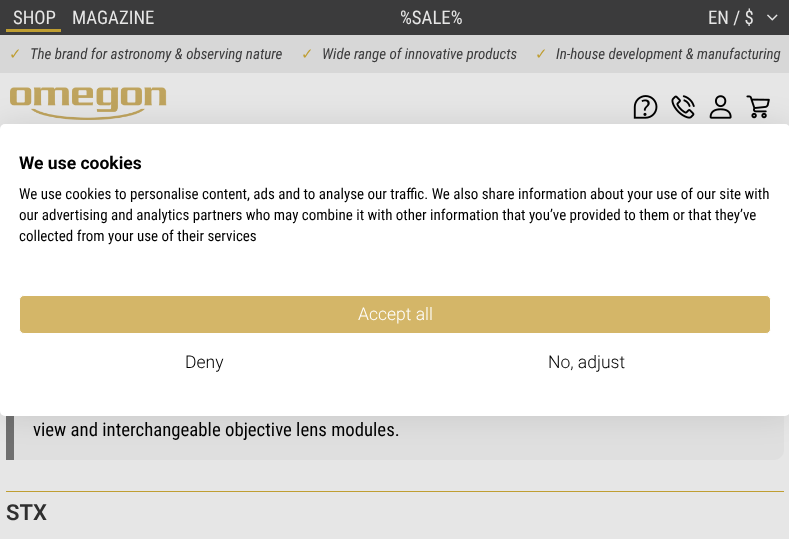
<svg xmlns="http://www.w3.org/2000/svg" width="789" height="539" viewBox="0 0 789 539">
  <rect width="100%" height="100%" fill="#e6e6e6"/>
  <path d="M0 0h789v35H0z" fill="#3b3b3c"/>
  <path d="M6 29h55v3H6z" fill="#bf9e32"/>
  <image x="767" y="14" width="11" height="7" href="img/1.png"/>
  <path d="M0 35h789v38H0z" fill="#d7d7d7"/>
  <image x="10" y="87" width="157" height="33" href="img/2.png"/>
  <image x="633" y="95" width="25" height="24" href="img/3.png"/>
  <image x="671" y="95" width="24" height="24" href="img/4.png"/>
  <image x="709" y="95" width="23" height="24" href="img/5.png"/>
  <image x="746" y="95" width="24" height="24" href="img/6.png"/>
  <path d="M6 378H774C779.5 378 784 382.5 784 388V450C784 455.5 779.5 460 774 460H6Z" fill="#dfdfdf"/>
  <path d="M6 416h8v44H6z" fill="#707070"/>
  <path d="M6 491h778v1H6z" fill="#bf9e32"/>
  <rect y="124" width="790" height="292" rx="5" fill="#0000001a" filter="blur(15px)"/>
  <rect y="124" width="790" height="292" rx="5" fill="#fff"/>
  <rect x="19.5" y="295.5" width="751" height="38" rx="4.5" fill="#d4b668" stroke="#fff"/>
  <g font-family="Roboto Condensed" font-size="18.75" fill="#e6e6e6">
    <text x="13" y="24">SHOP</text>
    <text x="72" y="24">MAGAZINE</text>
    <text x="400" y="24">%SALE%</text>
    <text x="708" y="24">EN / $</text>
  </g>
  <text x="9" y="59" font-family="DejaVu Sans" font-size="15" fill="#bf9e32">✓</text>
  <text x="30" y="59" font-family="Roboto Condensed" font-size="15" font-style="italic" fill="#3b3b3c">The brand for astronomy &amp; observing nature</text>
  <text x="301" y="59" font-family="DejaVu Sans" font-size="15" fill="#bf9e32">✓</text>
  <text x="322" y="59" font-family="Roboto Condensed" font-size="15" font-style="italic" fill="#3b3b3c">Wide range of innovative products</text>
  <text x="535" y="59" font-family="DejaVu Sans" font-size="15" fill="#bf9e32">✓</text>
  <text x="556" y="59" font-family="Roboto Condensed" font-size="15" font-style="italic" fill="#3b3b3c">In-house development &amp; manufacturing</text>
  <text x="33" y="436" font-family="Roboto Condensed" font-size="18.75" fill="#000">view and interchangeable objective lens modules.</text>
  <text x="6" y="520" font-family="Roboto" font-size="22" font-weight="600" fill="#2f2f2f">STX</text>
  <text x="19" y="169" font-family="Roboto" font-size="17.5" font-weight="bold" fill="#000">We use cookies</text>
  <g font-family="Roboto Condensed" font-size="15" fill="#000">
    <text x="19" y="199">We use cookies to personalise content, ads and to analyse our traffic. We also share information about your use of our site with</text>
    <text x="19" y="220">our advertising and analytics partners who may combine it with other information that you’ve provided to them or that they’ve</text>
    <text x="19" y="241">collected from your use of their services</text>
  </g>
  <text x="358" y="320" font-family="Roboto" font-size="17.5" font-weight="300" fill="#fff">Accept all</text>
  <g font-family="Roboto" font-size="17.5" font-weight="300" fill="#000">
    <text x="185" y="368">Deny</text>
    <text x="548" y="368">No, adjust</text>
  </g>
</svg>
